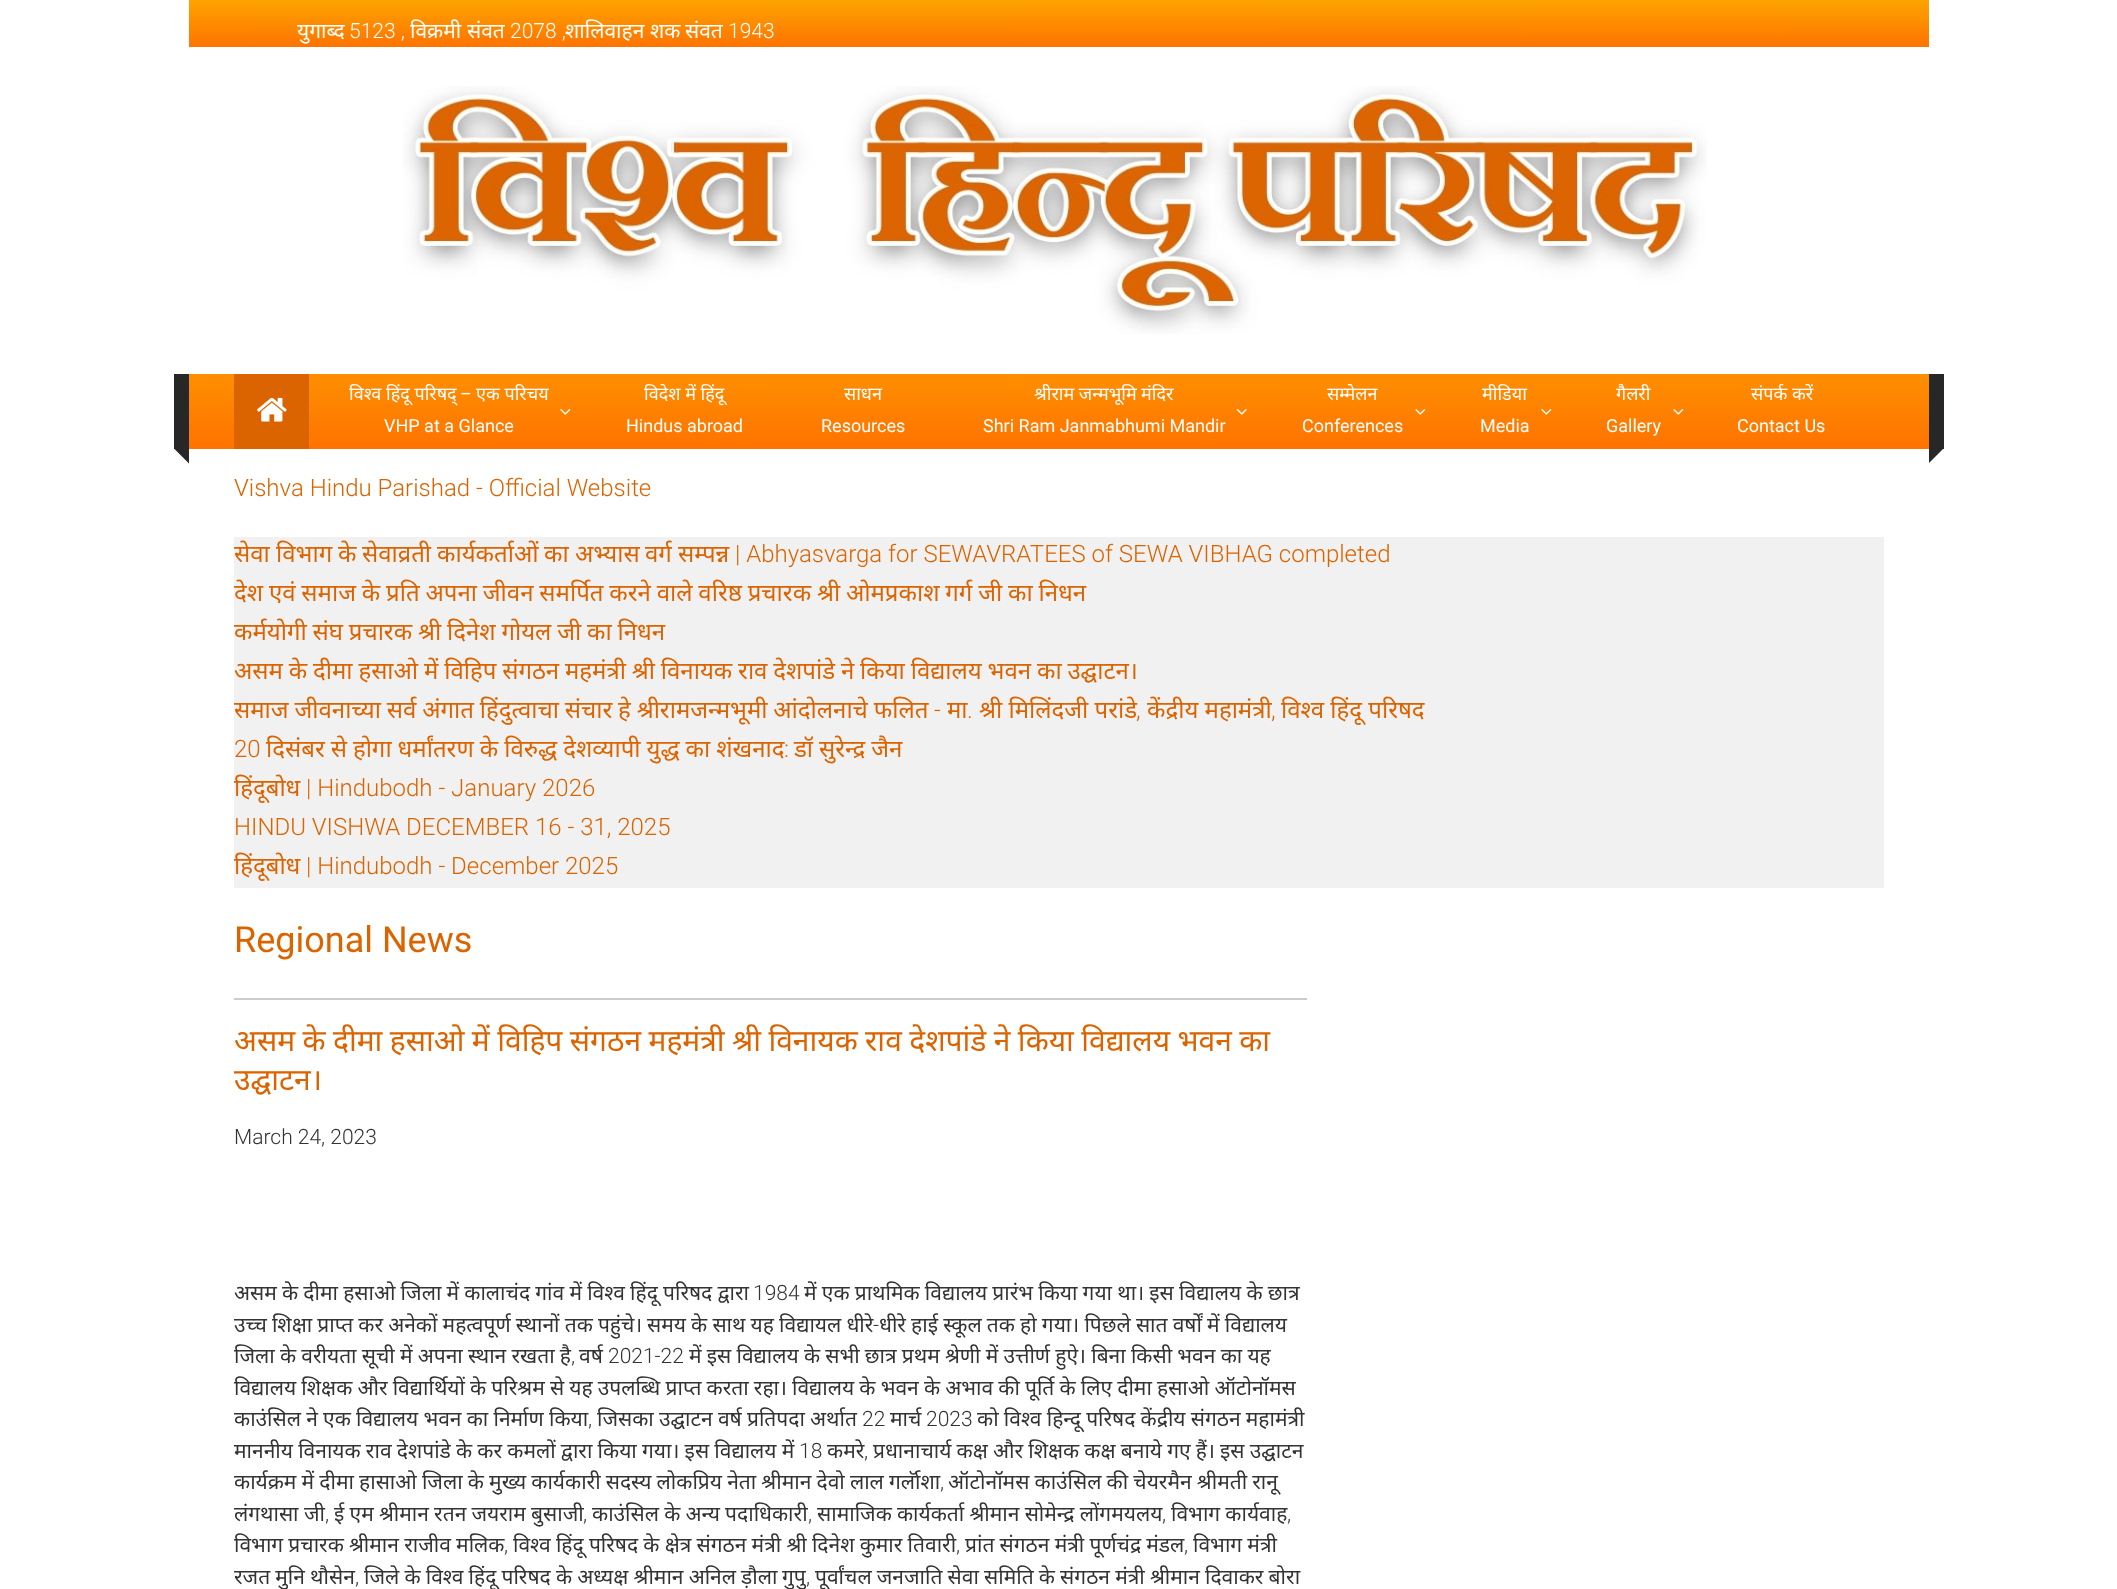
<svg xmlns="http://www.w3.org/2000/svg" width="2117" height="1589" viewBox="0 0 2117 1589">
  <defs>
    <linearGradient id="g1" gradientUnits="userSpaceOnUse" x1="1059" y1="0" x2="1059" y2="47"><stop offset="0" stop-color="#fda400"/><stop offset="1" stop-color="#ff7300"/></linearGradient>
    <linearGradient id="g2" gradientUnits="userSpaceOnUse" x1="1059" y1="317" x2="1059" y2="449"><stop offset="0" stop-color="#fda400"/><stop offset="1" stop-color="#ff7300"/></linearGradient>
  </defs>
  <rect width="100%" height="100%" fill="#fff"/>
  <path d="M189 0h1740v47H189z" fill="url(#g1)"/>
  <image x="403" y="86" width="1304" height="248" href="img/1.png"/>
  <path d="M189 374h1740v75H189z" fill="url(#g2)"/>
  <path d="M174 374h15v75H174z" fill="#272727"/>
  <path d="M234 374h75v75H234z" fill="#db6400"/>
  <image x="257" y="397" width="30" height="25" href="img/2.png"/>
  <image x="560" y="409" width="11" height="6" href="img/3.png"/>
  <image x="1236" y="409" width="11" height="6" href="img/4.png"/>
  <image x="1415" y="409" width="11" height="6" href="img/3.png"/>
  <image x="1541" y="409" width="11" height="6" href="img/3.png"/>
  <image x="1673" y="409" width="11" height="6" href="img/3.png"/>
  <path d="M189 433.5V463.5L174 448.5Z" fill="#272727"/>
  <path d="M1929 463V433L1944 448Z" fill="#272727"/>
  <path d="M1929 374h15v75H1929z" fill="#272727"/>
  <path d="M234 537h1650v351H234z" fill="#f1f1f1"/>
  <path d="M234 998h1073v2H234z" fill="#ccc"/>
  <text x="297" y="38" font-family="Noto Sans" font-size="21" fill="#fff">युगाब्द</text>
  <text x="349" y="38" font-family="Roboto" font-size="21" font-weight="300" fill="#fff">5123 ,</text>
  <g font-family="Noto Sans" font-size="21" fill="#fff">
    <text x="410" y="38">विक्रमी</text>
    <text x="467" y="38">संवत</text>
  </g>
  <text x="510" y="38" font-family="Roboto" font-size="21" font-weight="300" fill="#fff">2078 ,</text>
  <g font-family="Noto Sans" font-size="21" fill="#fff">
    <text x="565" y="38">शालिवाहन</text>
    <text x="650" y="38">शक</text>
    <text x="685" y="38">संवत</text>
  </g>
  <text x="728" y="38" font-family="Roboto" font-size="21" font-weight="300" fill="#fff">1943</text>
  <text x="349" y="400" font-family="Noto Sans" font-size="18" fill="#fff">विश्व हिंदू परिषद्</text>
  <text x="460" y="400" font-family="Roboto" font-size="18" fill="#fff">–</text>
  <text x="476" y="400" font-family="Noto Sans" font-size="18" fill="#fff">एक परिचय</text>
  <text x="384" y="432" font-family="Roboto" font-size="18" fill="#fff">VHP at a Glance</text>
  <text x="644" y="400" font-family="Noto Sans" font-size="18" fill="#fff">विदेश में हिंदू</text>
  <text x="626" y="432" font-family="Roboto" font-size="18" fill="#fff">Hindus abroad</text>
  <text x="844" y="400" font-family="Noto Sans" font-size="18" fill="#fff">साधन</text>
  <text x="821" y="432" font-family="Roboto" font-size="18" fill="#fff">Resources</text>
  <g font-family="Noto Sans" font-size="18" fill="#fff">
    <text x="1034" y="400">श्रीराम जन्मभूमि</text>
    <text x="1141" y="400">मंदिर</text>
  </g>
  <text x="983" y="432" font-family="Roboto" font-size="18" fill="#fff">Shri Ram Janmabhumi Mandir</text>
  <text x="1327" y="400" font-family="Noto Sans" font-size="18" fill="#fff">सम्मेलन</text>
  <text x="1302" y="432" font-family="Roboto" font-size="18" fill="#fff">Conferences</text>
  <text x="1482" y="400" font-family="Noto Sans" font-size="18" fill="#fff">मीडिया</text>
  <text x="1480" y="432" font-family="Roboto" font-size="18" fill="#fff">Media</text>
  <text x="1616" y="400" font-family="Noto Sans" font-size="18" fill="#fff">गैलरी</text>
  <text x="1606" y="432" font-family="Roboto" font-size="18" fill="#fff">Gallery</text>
  <text x="1751" y="400" font-family="Noto Sans" font-size="18" fill="#fff">संपर्क करें</text>
  <text x="1737" y="432" font-family="Roboto" font-size="18" fill="#fff">Contact Us</text>
  <text x="234" y="496" font-family="Roboto" font-size="24" font-weight="300" fill="#db6400">Vishva Hindu Parishad - Official Website</text>
  <g font-family="Noto Sans" font-size="24" fill="#db6400">
    <text x="234" y="562">सेवा</text>
    <text x="276" y="562">विभाग</text>
    <text x="338" y="562">के</text>
    <text x="362" y="562">सेवाव्रती</text>
    <text x="437" y="562">कार्यकर्ताओं</text>
    <text x="544" y="562">का</text>
    <text x="575" y="562">अभ्यास</text>
    <text x="645" y="562">वर्ग</text>
    <text x="678" y="562">सम्पन्न</text>
  </g>
  <text x="735" y="562" font-family="Roboto" font-size="24" font-weight="300" fill="#db6400">| Abhyasvarga for SEWAVRATEES of SEWA VIBHAG completed</text>
  <g font-family="Noto Sans" font-size="24" fill="#db6400">
    <text x="234" y="601" word-spacing="-0.4">देश एवं समाज के प्रति अपना जीवन समर्पित करने वाले वरिष्ठ प्रचारक श्री ओमप्रकाश गर्ग जी का निधन</text>
    <text x="234" y="640" word-spacing="-0.4">कर्मयोगी संघ प्रचारक श्री दिनेश गोयल जी का निधन</text>
    <text x="234" y="679" word-spacing="-0.4">असम के दीमा हसाओ में विहिप संगठन महमंत्री श्री विनायक राव देशपांडे ने किया विद्यालय भवन का उद्घाटन।</text>
    <text x="234" y="718" word-spacing="-0.4">समाज जीवनाच्या सर्व अंगात हिंदुत्वाचा संचार हे श्रीरामजन्मभूमी आंदोलनाचे फलित</text>
  </g>
  <text x="934" y="718" font-family="Roboto" font-size="24" font-weight="300" fill="#db6400">-</text>
  <g font-family="Noto Sans" font-size="24" fill="#db6400">
    <text x="947" y="718">मा</text>
    <text x="979" y="718">श्री मिलिंदजी परांडे</text>
    <text x="1281" y="718">विश्व हिंदू परिषद</text>
  </g>
  <g font-family="Roboto" font-size="24" font-weight="300" fill="#db6400">
    <text x="967" y="718">.</text>
    <text x="1136" y="718">,</text>
  </g>
  <text x="1147" y="718" font-family="Noto Sans" font-size="24" fill="#db6400">केंद्रीय महामंत्री</text>
  <g font-family="Roboto" font-size="24" font-weight="300" fill="#db6400">
    <text x="1271" y="718">,</text>
    <text x="234" y="757">20</text>
  </g>
  <text x="266" y="757" word-spacing="-0.25" font-family="Noto Sans" font-size="24" fill="#db6400">दिसंबर से होगा धर्मांतरण के विरुद्ध देशव्यापी युद्ध का शंखनाद</text>
  <text x="784" y="757" font-family="Roboto" font-size="24" font-weight="300" fill="#db6400">:</text>
  <g font-family="Noto Sans" font-size="24" fill="#db6400">
    <text x="794" y="757" word-spacing="-0.25">डॉ सुरेन्द्र जैन</text>
    <text x="234" y="796">हिंदूबोध</text>
  </g>
  <g font-family="Roboto" font-size="24" font-weight="300" fill="#db6400">
    <text x="306" y="796">| Hindubodh - January 2026</text>
    <text x="234" y="835">HINDU VISHWA DECEMBER 16 - 31, 2025</text>
  </g>
  <text x="234" y="874" font-family="Noto Sans" font-size="24" fill="#db6400">हिंदूबोध</text>
  <text x="306" y="874" font-family="Roboto" font-size="24" font-weight="300" fill="#db6400">| Hindubodh - December 2025</text>
  <text x="234" y="952" font-family="Roboto" font-size="36" fill="#db6400">Regional News</text>
  <g font-family="Noto Sans" font-size="30" fill="#db6400">
    <text x="234" y="1051" word-spacing="-0.4">असम के दीमा हसाओ में विहिप संगठन महमंत्री श्री विनायक राव देशपांडे ने किया विद्यालय भवन का</text>
    <text x="234" y="1090">उद्घाटन।</text>
  </g>
  <text x="234" y="1144" font-family="Roboto" font-size="21" font-weight="300" fill="#333">March 24, 2023</text>
  <text x="234" y="1300" word-spacing="-0.25" font-family="Noto Sans" font-size="21" fill="#333">असम के दीमा हसाओ जिला में कालाचंद गांव में विश्व हिंदू परिषद द्वारा</text>
  <text x="753" y="1300" font-family="Roboto" font-size="21" font-weight="300" fill="#333">1984</text>
  <g font-family="Noto Sans" font-size="21" fill="#333">
    <text x="804" y="1300" word-spacing="-0.25">में एक प्राथमिक विद्यालय प्रारंभ किया गया था। इस विद्यालय के छात्र</text>
    <text x="234" y="1332" word-spacing="-0.3">उच्च शिक्षा प्राप्त कर अनेकों महत्वपूर्ण स्थानों तक पहुंचे।</text>
    <text x="647" y="1332" word-spacing="-0.3">समय के साथ यह विद्यायल धीरे</text>
  </g>
  <text x="873" y="1332" font-family="Roboto" font-size="21" font-weight="300" fill="#333">-</text>
  <g font-family="Noto Sans" font-size="21" fill="#333">
    <text x="879" y="1332" word-spacing="-0.3">धीरे हाई स्कूल तक हो गया। पिछले सात वर्षों में विद्यालय</text>
    <text x="234" y="1363" word-spacing="-0.25">जिला के वरीयता सूची में अपना स्थान रखता है</text>
  </g>
  <text x="571" y="1363" font-family="Roboto" font-size="21" font-weight="300" fill="#333">,</text>
  <text x="579" y="1363" font-family="Noto Sans" font-size="21" fill="#333">वर्ष</text>
  <text x="608" y="1363" font-family="Roboto" font-size="21" font-weight="300" fill="#333">2021-22</text>
  <g font-family="Noto Sans" font-size="21" fill="#333">
    <text x="689" y="1363" word-spacing="-0.25">में इस विद्यालय के सभी छात्र प्रथम श्रेणी में उत्तीर्ण हुऐ। बिना किसी भवन का यह</text>
    <text x="234" y="1395" word-spacing="-0.3">विद्यालय शिक्षक और विद्यार्थियों के परिश्रम से यह उपलब्धि प्राप्त करता रहा।</text>
    <text x="792" y="1395" word-spacing="-0.3">विद्यालय के भवन के अभाव की पूर्ति के लिए दीमा हसाओ ऑटोनॉमस</text>
    <text x="234" y="1426" word-spacing="-0.25">काउंसिल ने एक विद्यालय भवन का निर्माण किया</text>
  </g>
  <text x="588" y="1426" font-family="Roboto" font-size="21" font-weight="300" fill="#333">,</text>
  <text x="597" y="1426" word-spacing="-0.25" font-family="Noto Sans" font-size="21" fill="#333">जिसका उद्घाटन वर्ष प्रतिपदा अर्थात</text>
  <text x="862" y="1426" font-family="Roboto" font-size="21" font-weight="300" fill="#333">22</text>
  <text x="890" y="1426" font-family="Noto Sans" font-size="21" fill="#333">मार्च</text>
  <text x="926" y="1426" font-family="Roboto" font-size="21" font-weight="300" fill="#333">2023</text>
  <g font-family="Noto Sans" font-size="21" fill="#333">
    <text x="977" y="1426" word-spacing="-0.25">को विश्व हिन्दू परिषद केंद्रीय संगठन महामंत्री</text>
    <text x="234" y="1458" word-spacing="-0.25">माननीय विनायक राव देशपांडे के कर कमलों द्वारा किया गया। इस विद्यालय में</text>
  </g>
  <text x="799" y="1458" font-family="Roboto" font-size="21" font-weight="300" fill="#333">18</text>
  <text x="827" y="1458" font-family="Noto Sans" font-size="21" fill="#333">कमरे</text>
  <text x="864" y="1458" font-family="Roboto" font-size="21" font-weight="300" fill="#333">,</text>
  <g font-family="Noto Sans" font-size="21" fill="#333">
    <text x="873" y="1458" word-spacing="-0.25">प्रधानाचार्य कक्ष और शिक्षक कक्ष बनाये गए हैं।</text>
    <text x="1220" y="1458" word-spacing="-0.3">इस उद्घाटन</text>
    <text x="234" y="1489" word-spacing="-0.3">कार्यक्रम में दीमा हासाओ जिला के मुख्य कार्यकारी सदस्य लोकप्रिय नेता श्रीमान देवो लाल गर्लॉशा</text>
  </g>
  <text x="940" y="1489" font-family="Roboto" font-size="21" font-weight="300" fill="#333">,</text>
  <g font-family="Noto Sans" font-size="21" fill="#333">
    <text x="948" y="1489" word-spacing="-0.3">ऑटोनॉमस काउंसिल की चेयरमैन श्रीमती रानू</text>
    <text x="234" y="1521">लंगथासा</text>
    <text x="304" y="1521">जी</text>
  </g>
  <text x="325" y="1521" font-family="Roboto" font-size="21" font-weight="300" fill="#333">,</text>
  <text x="334" y="1521" word-spacing="-0.25" font-family="Noto Sans" font-size="21" fill="#333">ई एम श्रीमान रतन जयराम बुसाजी</text>
  <text x="583" y="1521" font-family="Roboto" font-size="21" font-weight="300" fill="#333">,</text>
  <text x="592" y="1521" word-spacing="-0.25" font-family="Noto Sans" font-size="21" fill="#333">काउंसिल के अन्य पदाधिकारी</text>
  <text x="808" y="1521" font-family="Roboto" font-size="21" font-weight="300" fill="#333">,</text>
  <text x="817" y="1521" word-spacing="-0.25" font-family="Noto Sans" font-size="21" fill="#333">सामाजिक कार्यकर्ता श्रीमान सोमेन्द्र लोंगमयलय</text>
  <text x="1162" y="1521" font-family="Roboto" font-size="21" font-weight="300" fill="#333">,</text>
  <text x="1171" y="1521" word-spacing="-0.25" font-family="Noto Sans" font-size="21" fill="#333">विभाग कार्यवाह</text>
  <text x="1287" y="1521" font-family="Roboto" font-size="21" font-weight="300" fill="#333">,</text>
  <g font-family="Noto Sans" font-size="21" fill="#333">
    <text x="234" y="1552" word-spacing="-0.25">विभाग प्रचारक श्रीमान राजीव मलिक</text>
    <text x="513" y="1552" word-spacing="-0.25">विश्व हिंदू परिषद के क्षेत्र संगठन मंत्री श्री दिनेश कुमार तिवारी</text>
    <text x="965" y="1552" word-spacing="-0.25">प्रांत संगठन मंत्री पूर्णचंद्र मंडल</text>
    <text x="1193" y="1552" word-spacing="-0.25">विभाग मंत्री</text>
  </g>
  <g font-family="Roboto" font-size="21" font-weight="300" fill="#333">
    <text x="504" y="1552">,</text>
    <text x="956" y="1552">,</text>
    <text x="1184" y="1552">,</text>
  </g>
  <text x="234" y="1584" word-spacing="-0.3" font-family="Noto Sans" font-size="21" fill="#333">रजत मुनि थौसेन</text>
  <text x="355" y="1584" font-family="Roboto" font-size="21" font-weight="300" fill="#333">,</text>
  <g font-family="Noto Sans" font-size="21" fill="#333">
    <text x="364" y="1584" word-spacing="-0.3">जिले के विश्व हिंदू परिषद के अध्यक्ष श्रीमान अनिल</text>
    <text x="741" y="1584">ड़ौला</text>
    <text x="782" y="1584">गुपु</text>
  </g>
  <text x="806" y="1584" font-family="Roboto" font-size="21" font-weight="300" fill="#333">,</text>
  <text x="815" y="1584" word-spacing="-0.3" font-family="Noto Sans" font-size="21" fill="#333">पूर्वांचल जनजाति सेवा समिति के संगठन मंत्री श्रीमान दिवाकर बोरा</text>
</svg>
